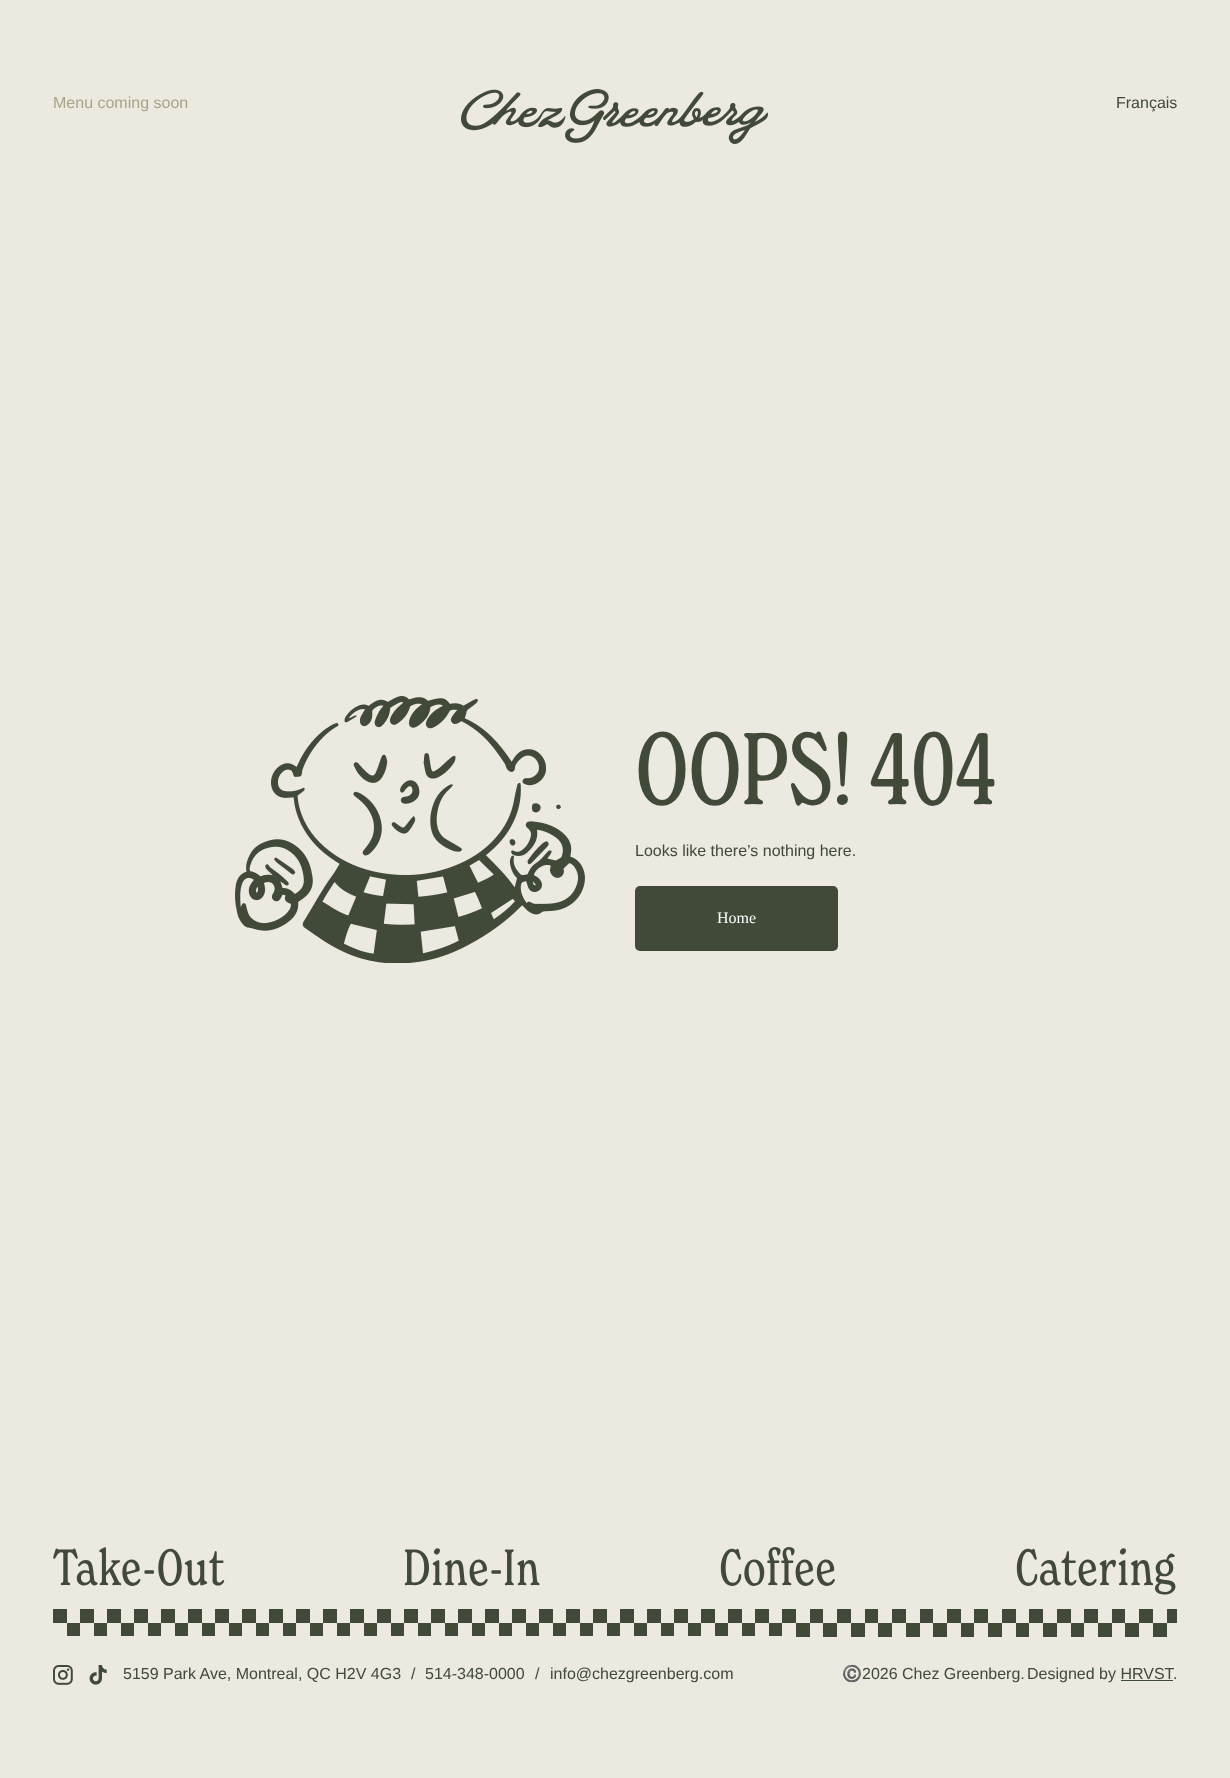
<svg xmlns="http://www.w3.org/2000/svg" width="1230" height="1778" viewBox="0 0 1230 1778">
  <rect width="100%" height="100%" fill="#ece9e1"/>
  <image x="461" y="89" width="307" height="55" href="img/1.png"/>
  <image x="235" y="696" width="350" height="267" href="img/2.png"/>
  <rect x="635" y="886" width="203" height="65" rx="5" fill="#414939"/>
  <image x="53" y="1609" width="1124" height="28" href="img/3.png"/>
  <image x="53" y="1665" width="20" height="20" href="img/4.png"/>
  <image x="89" y="1665" width="18" height="20" href="img/5.png"/>
  <path d="M1121 1680h52v1H1121z" fill="#414939"/>
  <text x="53" y="108" font-family="Liberation Sans" font-size="16" fill="#a8a585">Menu coming soon</text>
  <text x="1116" y="108" font-family="Liberation Sans" font-size="16" fill="#414939">Français</text>
  <text x="635" y="804" font-family="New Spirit" font-size="100" letter-spacing="-1" fill="#414939">OOPS! 404</text>
  <text x="635" y="856" font-family="Liberation Sans" font-size="16" fill="#414939">Looks like there’s nothing here.</text>
  <text x="717" y="923" font-family="Liberation Serif" font-size="16" fill="#fff">Home</text>
  <g font-family="New Spirit" font-size="50" letter-spacing="0.5" fill="#414939">
    <text x="53" y="1585">Take-Out</text>
    <text x="403" y="1585">Dine-In</text>
    <text x="719" y="1585">Coffee</text>
    <text x="1015" y="1585">Catering</text>
  </g>
  <g font-family="Liberation Sans" font-size="16" fill="#414939">
    <text x="123" y="1679">5159 Park Ave, Montreal, QC H2V 4G3</text>
    <text x="411" y="1679">/</text>
    <text x="425" y="1679">514-348-0000</text>
    <text x="535" y="1679">/</text>
    <text x="550" y="1679">info@chezgreenberg.com</text>
  </g>
  <text x="842" y="1679" font-family="Noto Color Emoji" font-size="16" fill="#414939">©️</text>
  <g font-family="Liberation Sans" font-size="16" fill="#414939">
    <text x="862" y="1679">2026 Chez Greenberg.</text>
    <text x="1027" y="1679">Designed by HRVST</text>
    <text x="1173" y="1679">.</text>
  </g>
</svg>
